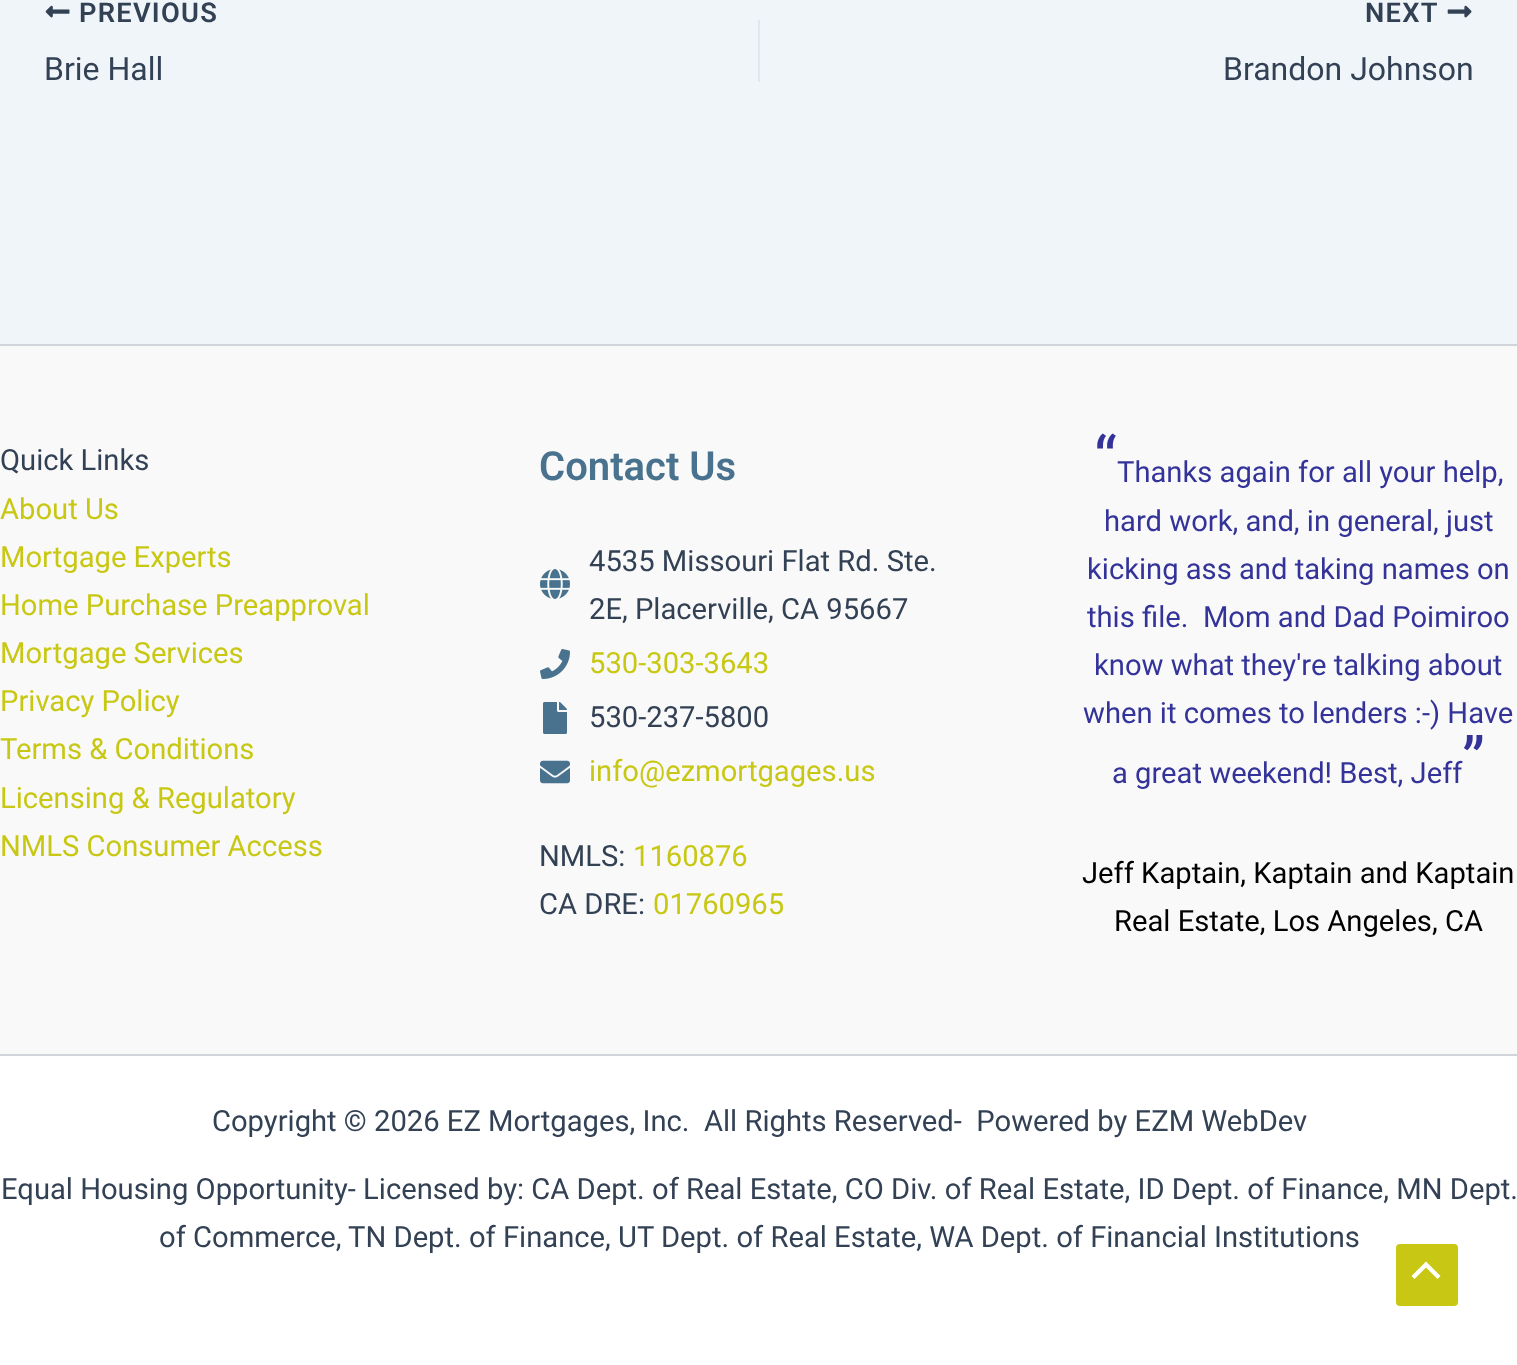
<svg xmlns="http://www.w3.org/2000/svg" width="1517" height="1365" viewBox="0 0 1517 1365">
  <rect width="100%" height="100%" fill="#f0f5fa"/>
  <image x="45" y="5" width="25" height="13" href="img/1.png"/>
  <path d="M758 20h2v62H758z" fill="#e1e8ed"/>
  <image x="1447" y="5" width="25" height="13" href="img/2.png"/>
  <path d="M0 346h1517v708H0z" fill="#f9f9f9"/>
  <path d="M0 344h1517v2H0z" fill="#d1d5db"/>
  <image x="540" y="569" width="30" height="30" href="img/3.png"/>
  <image x="540" y="649" width="30" height="30" href="img/4.png"/>
  <image x="543" y="702" width="24" height="32" href="img/5.png"/>
  <image x="540" y="760" width="30" height="24" href="img/6.png"/>
  <path d="M0 1056h1517v309H0z" fill="#fff"/>
  <path d="M0 1054h1517v2H0z" fill="#d1d5db"/>
  <rect x="1396" y="1244" width="62" height="62" rx="4" fill="#c8c814"/>
  <path d="M1440.5 1276L1426 1261.5L1411.5 1276L1414.5 1279L1426 1267.5L1437.5 1279Z" fill="#fff"/>
  <text x="79" y="22" font-family="Roboto" font-size="27.25" font-weight="600" letter-spacing="1.25" fill="#334155">PREVIOUS</text>
  <text x="44" y="80" font-family="Roboto" font-size="32" fill="#334155">Brie Hall</text>
  <text x="1365" y="22" font-family="Roboto" font-size="27.25" font-weight="600" letter-spacing="1.25" fill="#334155">NEXT</text>
  <text x="1223" y="80" font-family="Roboto" font-size="32" fill="#334155">Brandon Johnson</text>
  <text x="0" y="470" font-family="Roboto" font-size="29.18" fill="#334155">Quick Links</text>
  <g font-family="Roboto" font-size="29.18" fill="#c8c814">
    <text x="0" y="519">About Us</text>
    <text x="0" y="567">Mortgage Experts</text>
    <text x="0" y="615">Home Purchase Preapproval</text>
    <text x="0" y="663">Mortgage Services</text>
    <text x="0" y="711">Privacy Policy</text>
    <text x="0" y="759">Terms &amp; Conditions</text>
    <text x="0" y="808">Licensing &amp; Regulatory</text>
    <text x="0" y="856">NMLS Consumer Access</text>
  </g>
  <text x="539" y="480" font-family="Roboto" font-size="40" font-weight="600" fill="#48728e">Contact Us</text>
  <g font-family="Roboto" font-size="29.18" fill="#334155">
    <text x="589" y="571">4535 Missouri Flat Rd. Ste.</text>
    <text x="589" y="619">2E, Placerville, CA 95667</text>
  </g>
  <text x="589" y="673" font-family="Roboto" font-size="29.18" fill="#c8c814">530-303-3643</text>
  <text x="589" y="727" font-family="Roboto" font-size="29.18" fill="#334155">530-237-5800</text>
  <text x="589" y="781" font-family="Roboto" font-size="29.18" fill="#c8c814">info@ezmortgages.us</text>
  <text x="539" y="866" font-family="Roboto" font-size="29.18" fill="#334155">NMLS:</text>
  <text x="633" y="866" font-family="Roboto" font-size="29.18" fill="#c8c814">1160876</text>
  <text x="539" y="914" font-family="Roboto" font-size="29.18" fill="#334155">CA DRE:</text>
  <text x="653" y="914" font-family="Roboto" font-size="29.18" fill="#c8c814">01760965</text>
  <text x="1094" y="482" font-family="Roboto" font-size="64" fill="#339">“</text>
  <g font-family="Roboto" font-size="29.18" fill="#339">
    <text x="1117" y="482">Thanks again for all your help,</text>
    <text x="1104" y="531">hard work, and, in general, just</text>
    <text x="1087" y="579">kicking ass and taking names on</text>
    <text x="1087" y="627" xml:space="preserve">this file.  Mom and Dad Poimiroo</text>
    <text x="1094" y="675">know what they're talking about</text>
    <text x="1083" y="723">when it comes to lenders :-) Have</text>
  </g>
  <text x="1462" y="783" font-family="Roboto" font-size="64" fill="#339">”</text>
  <text x="1112" y="783" font-family="Roboto" font-size="29.18" fill="#339">a great weekend! Best, Jeff</text>
  <g font-family="Roboto" font-size="29.18" fill="#000">
    <text x="1082" y="883">Jeff Kaptain, Kaptain and Kaptain</text>
    <text x="1114" y="931">Real Estate, Los Angeles, CA</text>
  </g>
  <g font-family="Roboto" font-size="29.18" fill="#334155">
    <text x="212" y="1131" xml:space="preserve">Copyright © 2026 EZ Mortgages, Inc.  All Rights Reserved-  Powered by EZM WebDev</text>
    <text x="1" y="1199">Equal Housing Opportunity- Licensed by: CA Dept. of Real Estate, CO Div. of Real Estate, ID Dept. of Finance, MN Dept.</text>
    <text x="159" y="1247">of Commerce, TN Dept. of Finance, UT Dept. of Real Estate, WA Dept. of Financial Institutions</text>
  </g>
</svg>
